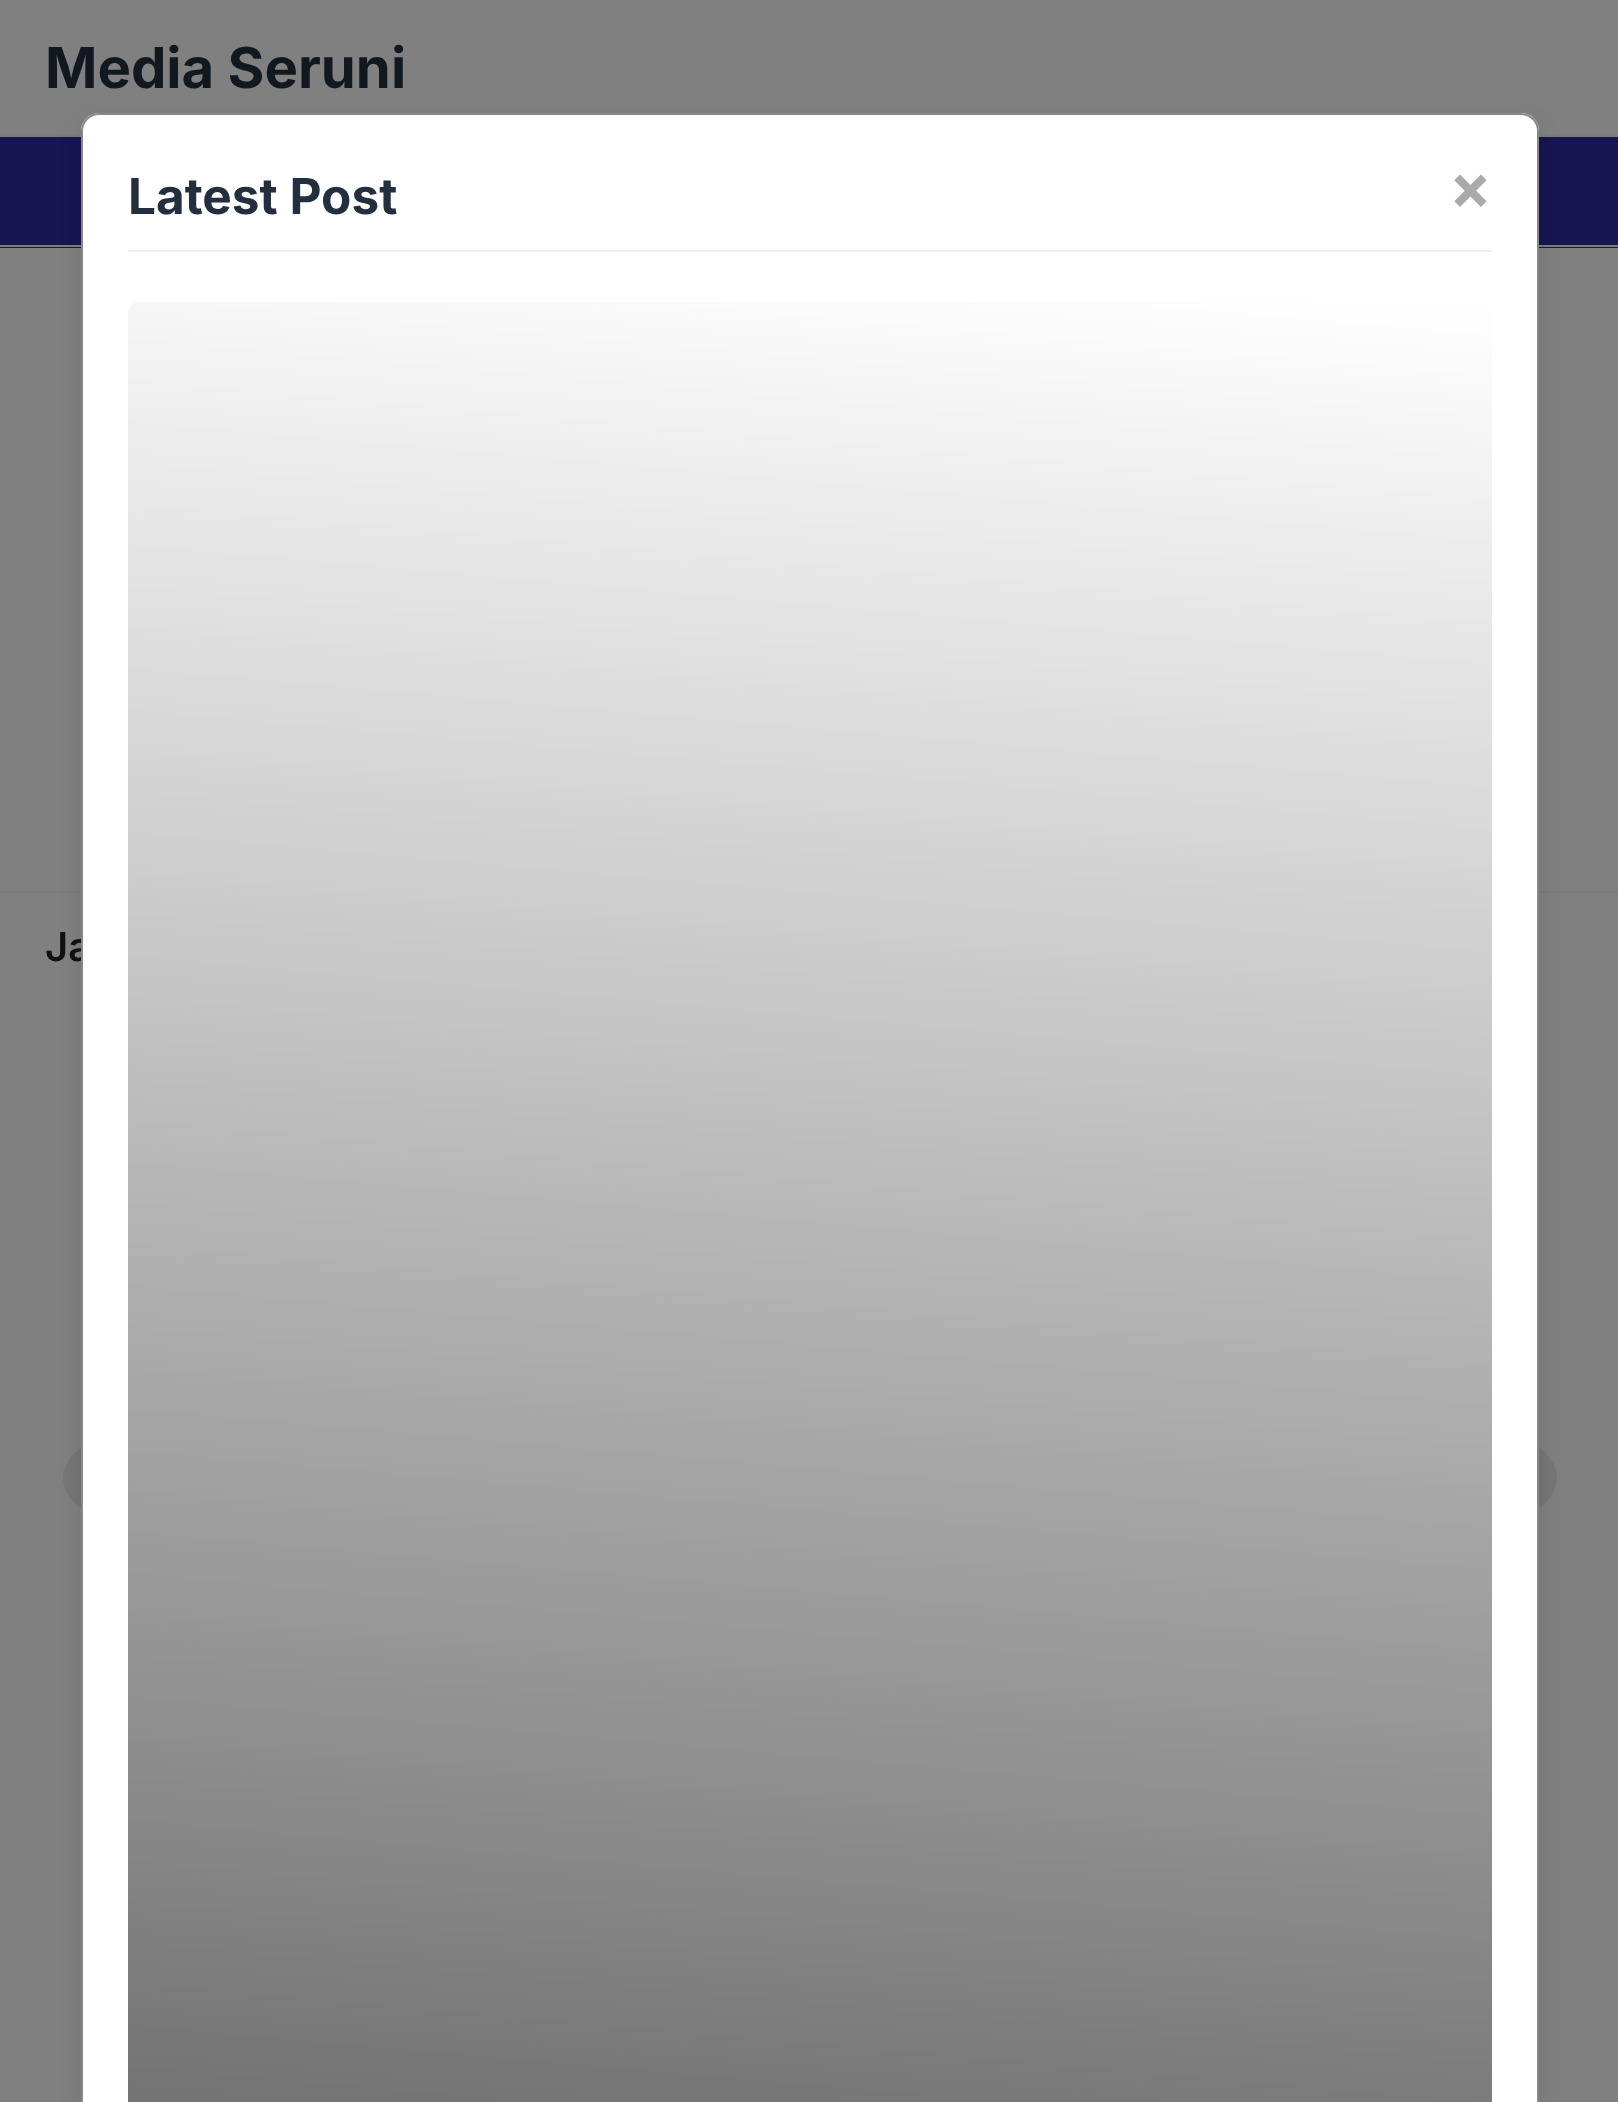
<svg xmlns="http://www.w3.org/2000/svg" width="1618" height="2102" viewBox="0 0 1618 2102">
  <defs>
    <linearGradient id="g1" gradientUnits="userSpaceOnUse" x1="962" y1="255" x2="658" y2="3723"><stop offset="0" stop-color="#fff"/><stop offset="1" stop-color="#000"/></linearGradient>
  </defs>
  <rect width="100%" height="100%" fill="#808080"/>
  <path d="M0 137h1618v111H0z" fill="#171552"/>
  <path d="M0 135h1618v2H0z" fill="#7c7c7c"/>
  <path d="M0 245h1618v2H0z" fill="#7c7c7c"/>
  <path d="M0 891h1618v2H0z" fill="#797979"/>
  <ellipse cx="108" cy="1478" rx="45" ry="38" fill="#00000014"/>
  <ellipse cx="1512" cy="1478" rx="45" ry="38" fill="#00000014"/>
  <rect x="81" y="122" width="1458" height="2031" rx="18" fill="#0000001a" filter="blur(11px)"/>
  <text x="45" y="88" font-family="Inter" font-size="56.25" font-weight="bold" fill="#12181f">Media Seruni</text>
  <text x="45" y="961" font-family="Inter" font-size="40" font-weight="600" fill="#111">Ja</text>
  <path d="M99 113H1521C1531 113 1539 121 1539 131V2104H81V131C81 121 89 113 99 113Z" fill="#fff"/>
  <rect x="82" y="114" width="1456" height="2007" rx="17" fill="none" stroke="#888" stroke-width="2"/>
  <text x="1449" y="209" font-family="Inter" font-size="63" font-weight="bold" fill="#aaa">×</text>
  <path d="M139 302H1481C1487 302 1492 307 1492 313V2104H128V313C128 307 133 302 139 302Z" fill="url(#g1)"/>
  <path d="M128 250h1364v2H128z" fill="#eee"/>
  <text x="128" y="214" font-family="Inter" font-size="49.5" font-weight="bold" fill="#232f3e">Latest Post</text>
</svg>
